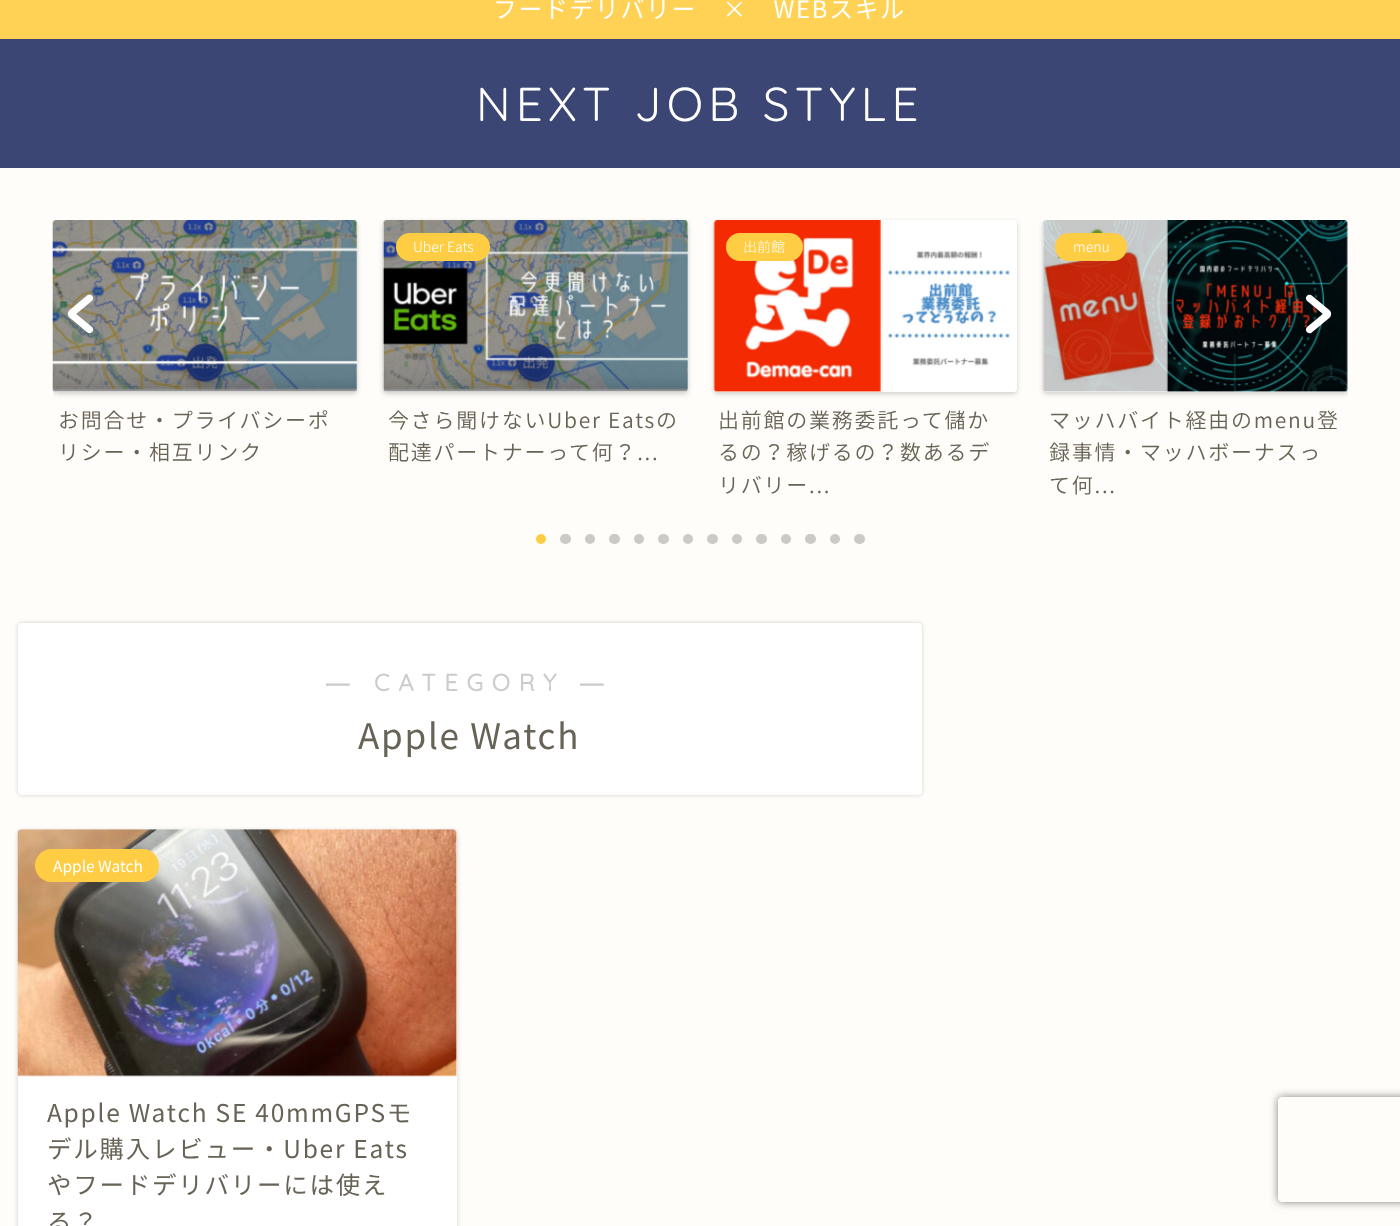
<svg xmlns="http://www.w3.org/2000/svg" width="1400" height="1226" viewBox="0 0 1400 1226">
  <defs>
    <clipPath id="clip1"><path d="M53 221h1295v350H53z"/></clipPath>
    <clipPath id="clip2"><path d="M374 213H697V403H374ZM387 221H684C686 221 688 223 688 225V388C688 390 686 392 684 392H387C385 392 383 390 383 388V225C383 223 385 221 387 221Z" clip-rule="evenodd"/></clipPath>
    <clipPath id="clip3"><path d="M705 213H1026V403H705ZM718 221H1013C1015 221 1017 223 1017 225V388C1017 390 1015 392 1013 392H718C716 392 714 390 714 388V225C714 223 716 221 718 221Z" clip-rule="evenodd"/></clipPath>
    <clipPath id="clip4"><path d="M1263 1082H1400V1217H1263ZM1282 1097H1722C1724 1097 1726 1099 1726 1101V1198C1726 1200 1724 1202 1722 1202H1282C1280 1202 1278 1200 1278 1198V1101C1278 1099 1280 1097 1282 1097Z" clip-rule="evenodd"/></clipPath>
  </defs>
  <rect width="100%" height="100%" fill="#fffdf9"/>
  <path d="M0 0h1400v39H0z" fill="#ffd256"/>
  <path d="M0 39h1400v129H0z" fill="#3b4675"/>
  <g clip-path="url(#clip1)">
    <rect x="53" y="222" width="304" height="172" rx="4" fill="#0000002e" filter="blur(2.5px)"/>
  </g>
  <rect x="53" y="221" width="304" height="171" rx="4" fill="#fff"/>
  <image x="52" y="220" width="306" height="172" href="img/1.png"/>
  <g clip-path="url(#clip2)">
    <rect x="383" y="222" width="305" height="172" rx="4" fill="#0000002e" filter="blur(2.5px)"/>
  </g>
  <rect x="383" y="221" width="305" height="171" rx="4" fill="#fff"/>
  <image x="382" y="220" width="306" height="172" href="img/2.png"/>
  <rect x="396" y="233" width="94" height="28" rx="14" fill="#ffcd44"/>
  <g clip-path="url(#clip3)">
    <rect x="714" y="222" width="303" height="172" rx="4" fill="#0000002e" filter="blur(2.5px)"/>
  </g>
  <rect x="714" y="221" width="303" height="171" rx="4" fill="#fff"/>
  <image x="713" y="220" width="304" height="172" href="img/3.png"/>
  <rect x="726" y="233" width="77" height="28" rx="14" fill="#ffcd44"/>
  <g clip-path="url(#clip1)">
    <rect x="1043" y="222" width="305" height="172" rx="4" fill="#0000002e" filter="blur(2.5px)"/>
  </g>
  <rect x="1043" y="221" width="305" height="171" rx="4" fill="#fff"/>
  <image x="1042" y="220" width="306" height="172" href="img/4.png"/>
  <rect x="1055" y="233" width="72" height="28" rx="14" fill="#ffcd44"/>
  <image x="67" y="294" width="27" height="40" href="img/5.png"/>
  <image x="1305" y="294" width="27" height="40" href="img/6.png"/>
  <circle cx="541" cy="539" r="5" fill="#ffcd44"/>
  <rect x="560" y="534" width="11" height="10" rx="5" fill="#cccac7"/>
  <circle cx="590" cy="539" r="5" fill="#cccac7"/>
  <rect x="609" y="534" width="11" height="10" rx="5" fill="#cccac7"/>
  <circle cx="639" cy="539" r="5" fill="#cccac7"/>
  <rect x="658" y="534" width="11" height="10" rx="5" fill="#cccac7"/>
  <circle cx="688" cy="539" r="5" fill="#cccac7"/>
  <rect x="707" y="534" width="11" height="10" rx="5" fill="#cccac7"/>
  <circle cx="737" cy="539" r="5" fill="#cccac7"/>
  <rect x="756" y="534" width="11" height="10" rx="5" fill="#cccac7"/>
  <circle cx="786" cy="539" r="5" fill="#cccac7"/>
  <rect x="805" y="534" width="11" height="10" rx="5" fill="#cccac7"/>
  <circle cx="835" cy="539" r="5" fill="#cccac7"/>
  <rect x="854" y="534" width="11" height="10" rx="5" fill="#cccac7"/>
  <rect x="18" y="623" width="904" height="172" rx="4" fill="#0000002e" filter="blur(2px)"/>
  <rect x="18" y="623" width="904" height="172" rx="4" fill="#fff"/>
  <rect x="18" y="831" width="439" height="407" rx="4" fill="#0000002e" filter="blur(2.5px)"/>
  <rect x="18" y="830" width="439" height="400" rx="4" fill="#fff"/>
  <image x="17" y="829" width="440" height="248" href="img/7.png"/>
  <rect x="35" y="849" width="124" height="33" rx="16.5" fill="#ffcd44"/>
  <g clip-path="url(#clip4)">
    <rect x="1278" y="1097" width="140" height="105" rx="4" fill="#808080" filter="blur(4.5px)"/>
  </g>
  <text x="493" y="18" font-family="Noto Sans JP" font-size="23.75" letter-spacing="1.75" fill="#fff">フードデリバリー　×　WEBスキル</text>
  <text x="476" y="121" font-family="Quicksand" font-size="47.5" font-weight="300" letter-spacing="5.25" fill="#fff">NEXT JOB STYLE</text>
  <g font-family="Noto Sans JP" font-size="21" font-weight="300" letter-spacing="1.75" fill="#686357">
    <text x="58" y="428">お問合せ・プライバシーポ</text>
    <text x="58" y="460">リシー・相互リンク</text>
  </g>
  <text x="413" y="252" font-family="'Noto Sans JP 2'" font-size="14" font-weight="300" fill="#fff">Uber Eats</text>
  <g font-family="Noto Sans JP" font-size="21" font-weight="300" letter-spacing="1.75" fill="#686357">
    <text x="388" y="428">今さら聞けないUber Eatsの</text>
    <text x="388" y="460">配達パートナーって何？...</text>
  </g>
  <text x="743" y="252" font-family="'Noto Sans JP 2'" font-size="14" font-weight="300" fill="#fff">出前館</text>
  <g font-family="Noto Sans JP" font-size="21" font-weight="300" letter-spacing="1.75" fill="#686357">
    <text x="718" y="428">出前館の業務委託って儲か</text>
    <text x="718" y="460">るの？稼げるの？数あるデ</text>
    <text x="718" y="493">リバリー...</text>
  </g>
  <text x="1073" y="252" font-family="'Noto Sans JP 2'" font-size="14" font-weight="300" fill="#fff">menu</text>
  <g font-family="Noto Sans JP" font-size="21" font-weight="300" letter-spacing="1.75" fill="#686357">
    <text x="1049" y="428">マッハバイト経由のmenu登</text>
    <text x="1049" y="460">録事情・マッハボーナスっ</text>
    <text x="1049" y="493">て何...</text>
  </g>
  <text x="326" y="691" font-family="Liberation Sans" font-size="23.75" font-weight="bold" letter-spacing="8.75" fill="#ccc">―</text>
  <text x="374" y="691" font-family="Quicksand" font-size="23.75" font-weight="bold" letter-spacing="8.75" fill="#ccc">CATEGORY</text>
  <text x="580" y="691" font-family="Liberation Sans" font-size="23.75" font-weight="bold" letter-spacing="8.75" fill="#ccc">―</text>
  <text x="358" y="749" font-family="Noto Sans JP" font-size="35" letter-spacing="1.75" fill="#686357">Apple Watch</text>
  <text x="53" y="872" font-family="Noto Sans JP" font-size="15.5" fill="#fff">Apple Watch</text>
  <g font-family="Noto Sans JP" font-size="24.5" letter-spacing="1.75" fill="#686357">
    <text x="47" y="1122">Apple Watch SE 40mmGPSモ</text>
    <text x="47" y="1158">デル購入レビュー・Uber Eats</text>
    <text x="47" y="1194">やフードデリバリーには使え</text>
    <text x="47" y="1231">る？</text>
  </g>
</svg>
